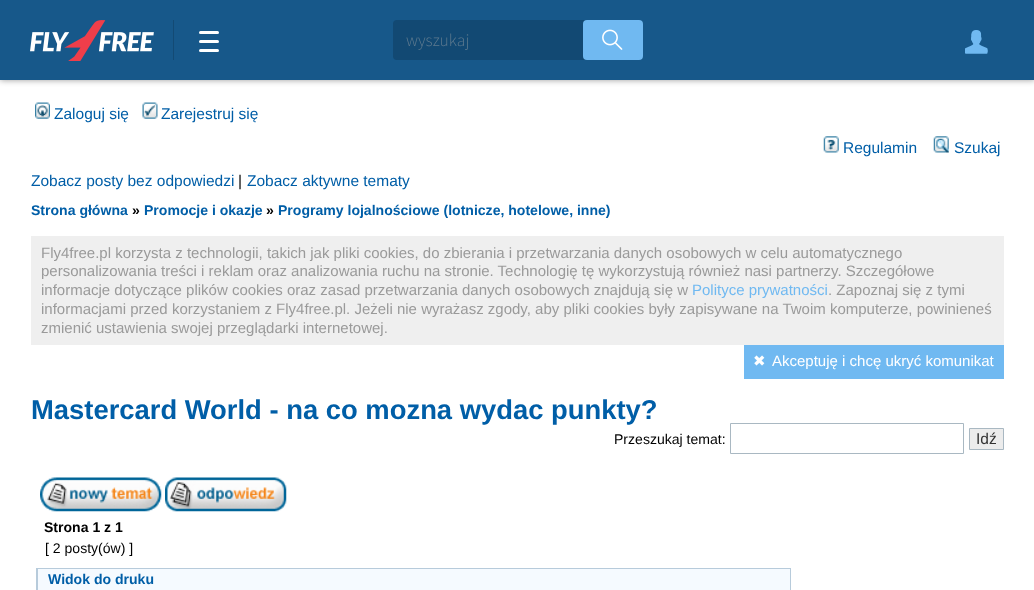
<svg xmlns="http://www.w3.org/2000/svg" width="1034" height="590" viewBox="0 0 1034 590">
  <rect width="100%" height="100%" fill="#fff"/>
  <path d="M0 0h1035v80H0z" fill="#00000066" filter="blur(3px)"/>
  <path d="M0 0h1034v80H0z" fill="#17588a"/>
  <image x="30" y="20" width="124" height="41" href="img/1.png"/>
  <path d="M173 20h1v40H173z" fill="#134a74"/>
  <rect x="199" y="49" width="20" height="3" rx="1.5" fill="#fff"/>
  <rect x="199" y="31" width="20" height="3" rx="1.5" fill="#fff"/>
  <rect x="199" y="40" width="20" height="3" rx="1.5" fill="#fff"/>
  <rect x="393" y="20" width="250" height="40" rx="4" fill="#124973"/>
  <rect x="583" y="20" width="60" height="40" rx="4" fill="#70b9f1"/>
  <image x="602" y="29" width="21" height="21" href="img/2.png"/>
  <image x="965" y="31" width="23" height="23" href="img/3.png"/>
  <image x="965" y="30" width="23" height="23" href="img/4.png"/>
  <image x="35" y="102" width="15" height="17" href="img/5.png"/>
  <image x="142" y="102" width="16" height="17" href="img/6.png"/>
  <image x="823" y="136" width="16" height="17" href="img/7.png"/>
  <image x="933" y="136" width="16" height="17" href="img/8.png"/>
  <path d="M31 236h973v109H31z" fill="#efefef"/>
  <path d="M744 345h260v34H744z" fill="#70b9f1"/>
  <path d="M730.5 423.5h233v30H730.5z" fill="none" stroke="#a9b8c2"/>
  <path d="M969.5 428.5h34v21H969.5z" fill="#ececec" stroke="#a9b8c2"/>
  <image x="40" y="477" width="122" height="35" href="img/9.png"/>
  <image x="165" y="477" width="122" height="35" href="img/10.png"/>
  <path d="M36 568h755v22H36z" fill="#b7cbdb"/>
  <path d="M38 569h752v21H38z" fill="#f5faff"/>
  <text x="406" y="46" font-family="Source Sans Pro" font-size="17.5" font-weight="300" fill="#5e7a8f">wyszukaj</text>
  <g font-family="Liberation Sans" font-size="15.5" fill="#005ea7">
    <text x="54" y="119">Zaloguj się</text>
    <text x="161" y="119">Zarejestruj się</text>
    <text x="843" y="153">Regulamin</text>
    <text x="954" y="153">Szukaj</text>
    <text x="31" y="186">Zobacz posty bez odpowiedzi</text>
  </g>
  <text x="238" y="186" font-family="Liberation Sans" font-size="15.5" fill="#000">|</text>
  <text x="247" y="186" font-family="Liberation Sans" font-size="15.5" fill="#005ea7">Zobacz aktywne tematy</text>
  <text x="31" y="215" font-family="Liberation Sans" font-size="14.05" font-weight="bold" fill="#005ea7">Strona główna</text>
  <text x="132" y="215" font-family="Liberation Sans" font-size="14.05" font-weight="bold" fill="#000">»</text>
  <text x="144" y="215" font-family="Liberation Sans" font-size="14.05" font-weight="bold" fill="#005ea7">Promocje i okazje</text>
  <text x="266" y="215" font-family="Liberation Sans" font-size="14.05" font-weight="bold" fill="#000">»</text>
  <text x="278" y="215" font-family="Liberation Sans" font-size="14.05" font-weight="bold" fill="#005ea7">Programy lojalnościowe (lotnicze, hotelowe, inne)</text>
  <g font-family="Liberation Sans" font-size="15" fill="#9a9a9a">
    <text x="41" y="258">Fly4free.pl korzysta z technologii, takich jak pliki cookies, do zbierania i przetwarzania danych osobowych w celu automatycznego</text>
    <text x="41" y="276">personalizowania treści i reklam oraz analizowania ruchu na stronie. Technologię tę wykorzystują również nasi partnerzy. Szczegółowe</text>
    <text x="41" y="295">informacje dotyczące plików cookies oraz zasad przetwarzania danych osobowych znajdują się w</text>
  </g>
  <text x="692" y="295" font-family="Liberation Sans" font-size="15" fill="#70b9f1">Polityce prywatności</text>
  <g font-family="Liberation Sans" font-size="15" fill="#9a9a9a">
    <text x="828" y="295">. Zapoznaj się z tymi</text>
    <text x="41" y="314">informacjami przed korzystaniem z Fly4free.pl. Jeżeli nie wyrażasz zgody, aby pliki cookies były zapisywane na Twoim komputerze, powinieneś</text>
    <text x="41" y="333">zmienić ustawienia swojej przeglądarki internetowej.</text>
  </g>
  <text x="753" y="366" font-family="DejaVu Sans" font-size="15" fill="#fff">✖</text>
  <text x="772" y="366" font-family="Liberation Sans" font-size="15" fill="#fff">Akceptuję i chcę ukryć komunikat</text>
  <text x="31" y="419" font-family="Liberation Sans" font-size="27.4" font-weight="bold" fill="#005ea7">Mastercard World - na co mozna wydac punkty?</text>
  <text x="614" y="444" font-family="Liberation Sans" font-size="14.05" fill="#000">Przeszukaj temat:</text>
  <text x="976" y="444" font-family="Liberation Sans" font-size="15.5" fill="#333">Idź</text>
  <text x="44" y="532" font-family="Liberation Sans" font-size="14.05" font-weight="bold" fill="#000">Strona 1 z 1</text>
  <text x="45" y="553" font-family="Liberation Sans" font-size="14.05" fill="#000">[ 2 posty(ów) ]</text>
  <text x="48" y="584" font-family="Liberation Sans" font-size="14.05" font-weight="bold" fill="#005ea7">Widok do druku</text>
</svg>
